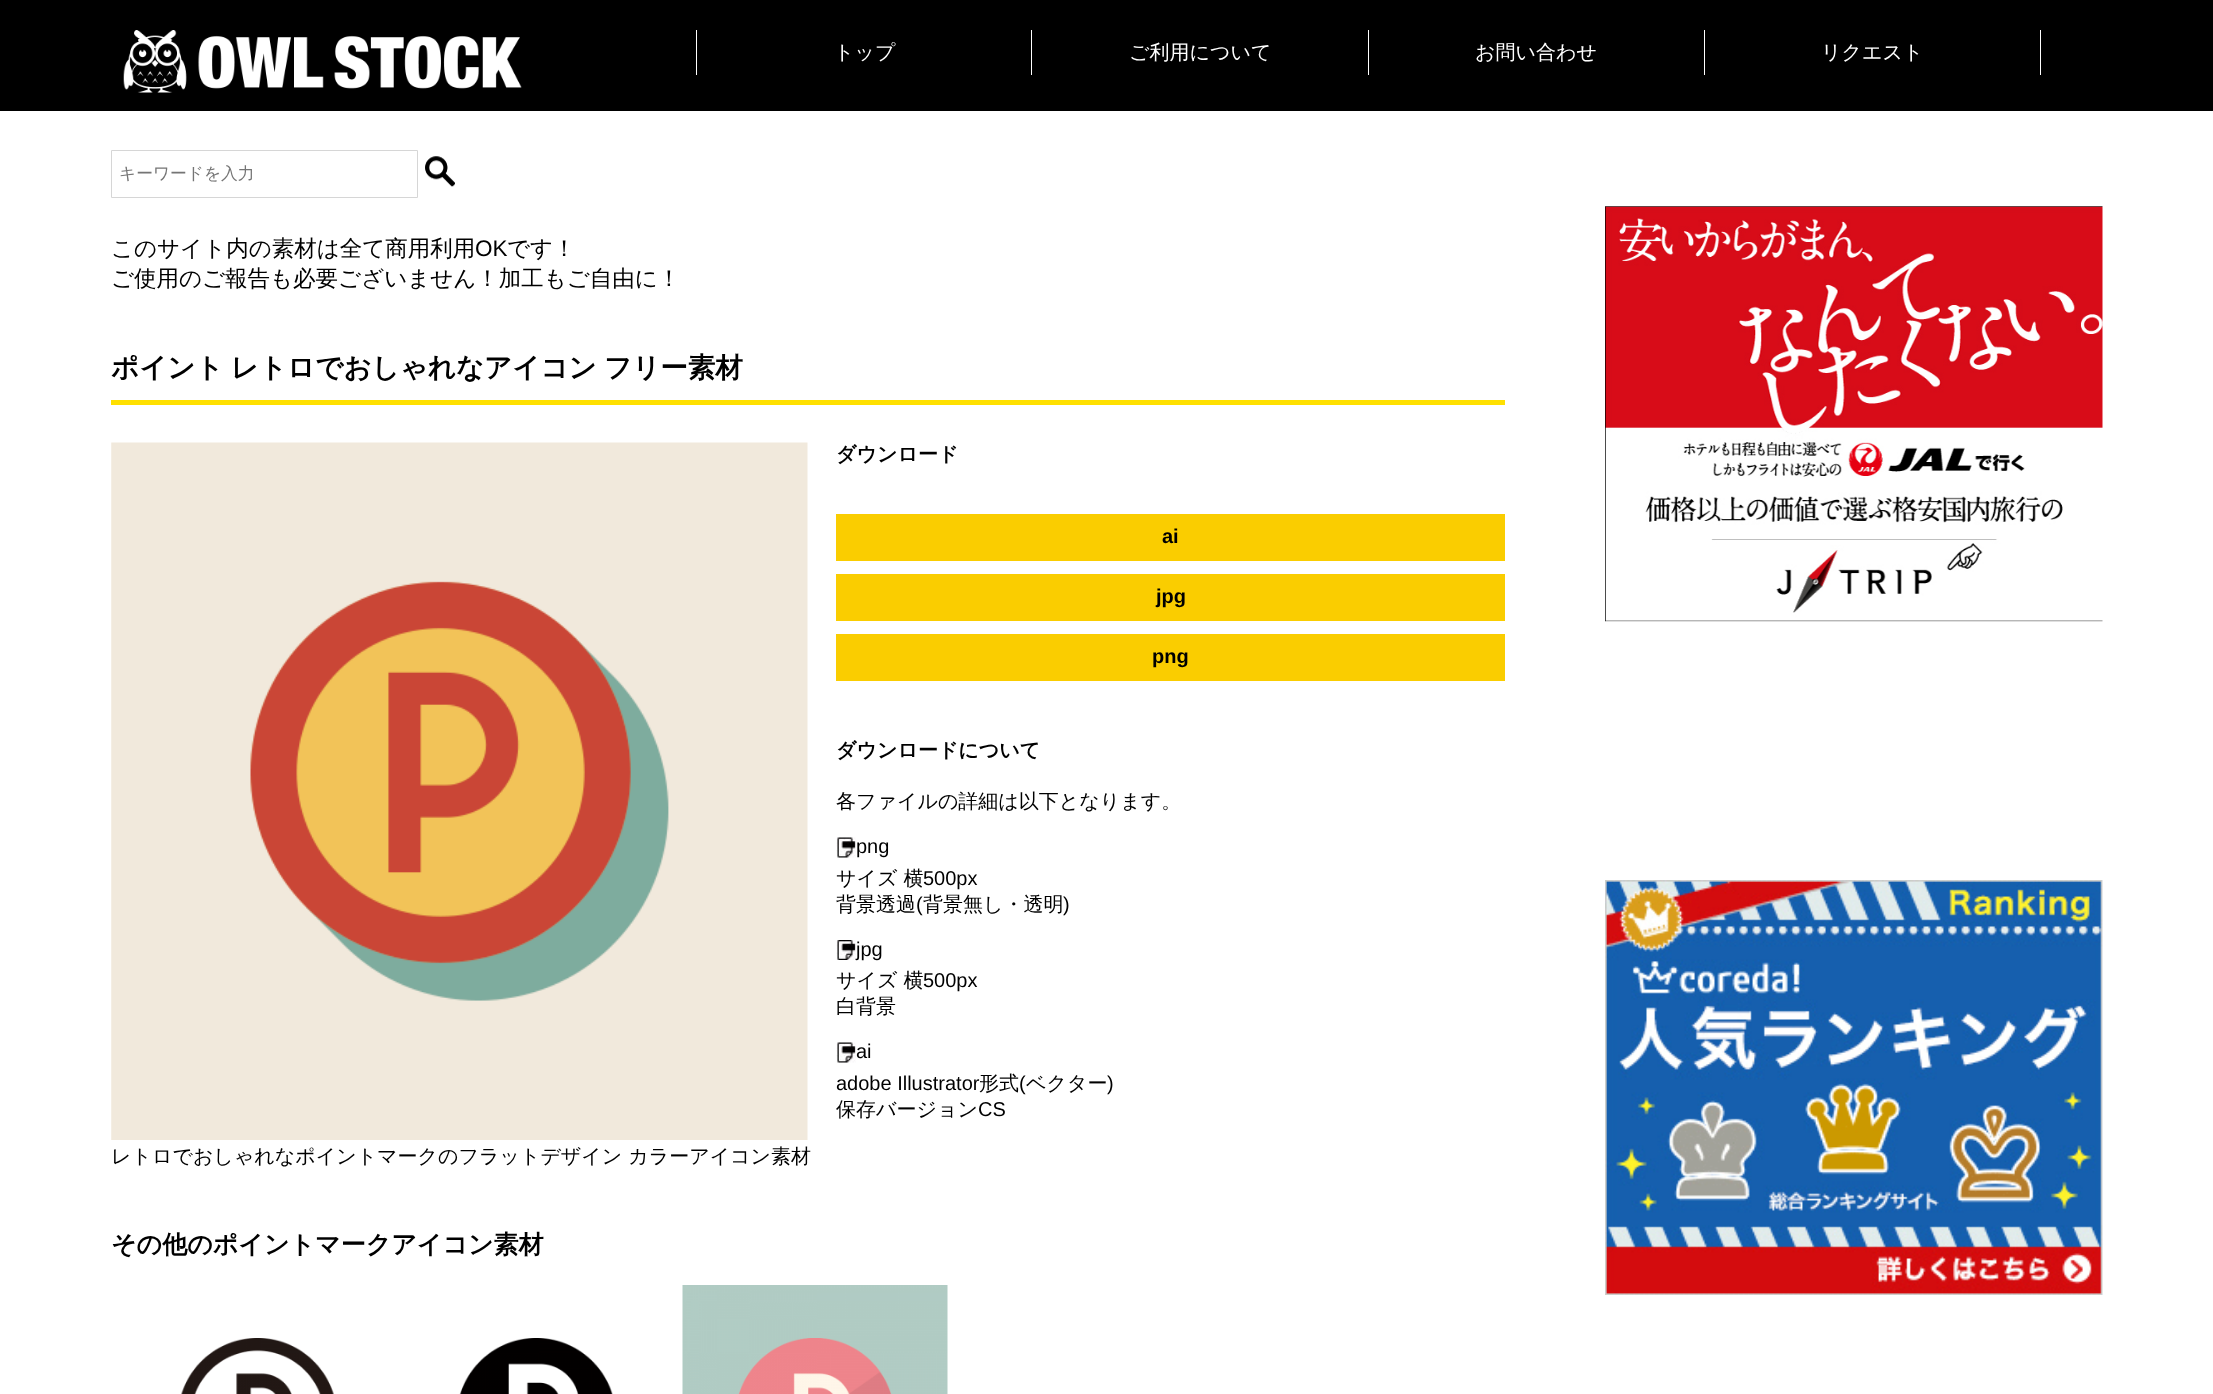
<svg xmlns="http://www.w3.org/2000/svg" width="2213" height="1394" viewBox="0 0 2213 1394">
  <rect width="100%" height="100%" fill="#fff"/>
  <path d="M0 0h2213v111H0z" fill="#000"/>
  <image x="123" y="30" width="399" height="63" href="img/1.png"/>
  <path d="M696 30h1v45H696z" fill="#fff"/>
  <path d="M1031 30h1v45H1031z" fill="#fff"/>
  <path d="M1368 30h1v45H1368z" fill="#fff"/>
  <path d="M2040 30h1v45H2040z" fill="#fff"/>
  <path d="M1704 30h1v45H1704z" fill="#fff"/>
  <path d="M111.5 150.5h306v47H111.5z" fill="none" stroke="#d6d6d6"/>
  <image x="425" y="156" width="30" height="31" href="img/2.png"/>
  <image x="1605" y="206" width="498" height="416" href="img/3.png"/>
  <image x="1605" y="880" width="498" height="415" href="img/4.png"/>
  <path d="M111 400h1394v5H111z" fill="#ffe000"/>
  <image x="111" y="442" width="697" height="698" href="img/5.png"/>
  <path d="M836 514h669v47H836z" fill="#facd00"/>
  <path d="M836 574h669v47H836z" fill="#facd00"/>
  <path d="M836 634h669v47H836z" fill="#facd00"/>
  <image x="836" y="837" width="20" height="21" href="img/6.png"/>
  <image x="836" y="940" width="20" height="20" href="img/7.png"/>
  <image x="836" y="1042" width="20" height="21" href="img/6.png"/>
  <image x="181" y="1338" width="153" height="56" href="img/8.png"/>
  <image x="459" y="1338" width="154" height="56" href="img/9.png"/>
  <image x="682" y="1285" width="266" height="109" href="img/10.png"/>
  <g font-family="WenQuanYi Zen Hei" font-size="20" font-weight="500" fill="#fff">
    <text x="834" y="59">トップ</text>
    <text x="1129" y="59">ご利用について</text>
    <text x="1475" y="59">お問い合わせ</text>
    <text x="1821" y="59">リクエスト</text>
  </g>
  <text x="119" y="179" font-family="WenQuanYi Zen Hei" font-size="16.75" font-weight="500" fill="#757575">キーワードを入力</text>
  <text x="111" y="256" font-family="WenQuanYi Zen Hei" font-size="22.5" font-weight="500" fill="#000">このサイト内の素材は全て商用利用</text>
  <text x="475" y="256" font-family="Liberation Sans" font-size="22.5" fill="#000">OK</text>
  <g font-family="WenQuanYi Zen Hei" font-size="22.5" font-weight="500" fill="#000">
    <text x="507" y="256">です！</text>
    <text x="111" y="286">ご使用のご報告も必要ございません！加工もご自由に！</text>
  </g>
  <g font-family="WenQuanYi Zen Hei" font-size="27.5" font-weight="bold" fill="#000">
    <text x="111" y="377" word-spacing="-1">ポイント レトロでおしゃれなアイコン</text>
    <text x="604" y="377">フリー素材</text>
  </g>
  <text x="836" y="461" font-family="WenQuanYi Zen Hei" font-size="20" font-weight="bold" fill="#000">ダウンロード</text>
  <g font-family="Liberation Sans" font-size="20" font-weight="bold" fill="#000">
    <text x="1162" y="543">ai</text>
    <text x="1156" y="603">jpg</text>
    <text x="1152" y="663">png</text>
  </g>
  <text x="836" y="757" font-family="WenQuanYi Zen Hei" font-size="20" font-weight="bold" fill="#000">ダウンロードについて</text>
  <text x="836" y="808" font-family="WenQuanYi Zen Hei" font-size="20" font-weight="500" fill="#000">各ファイルの詳細は以下となります。</text>
  <text x="856" y="853" font-family="Liberation Sans" font-size="20" fill="#000">png</text>
  <text x="836" y="885" font-family="WenQuanYi Zen Hei" font-size="20" font-weight="500" fill="#000">サイズ 横</text>
  <text x="923" y="885" font-family="Liberation Sans" font-size="20" fill="#000">500px</text>
  <text x="836" y="911" font-family="WenQuanYi Zen Hei" font-size="20" font-weight="500" fill="#000">背景透過</text>
  <text x="916" y="911" font-family="Liberation Sans" font-size="20" fill="#000">(</text>
  <text x="923" y="911" font-family="WenQuanYi Zen Hei" font-size="20" font-weight="500" fill="#000">背景無し・透明</text>
  <g font-family="Liberation Sans" font-size="20" fill="#000">
    <text x="1063" y="911">)</text>
    <text x="856" y="956">jpg</text>
  </g>
  <text x="836" y="987" font-family="WenQuanYi Zen Hei" font-size="20" font-weight="500" fill="#000">サイズ 横</text>
  <text x="923" y="987" font-family="Liberation Sans" font-size="20" fill="#000">500px</text>
  <text x="836" y="1013" font-family="WenQuanYi Zen Hei" font-size="20" font-weight="500" fill="#000">白背景</text>
  <g font-family="Liberation Sans" font-size="20" fill="#000">
    <text x="856" y="1058">ai</text>
    <text x="836" y="1090">adobe Illustrator</text>
  </g>
  <text x="979" y="1090" font-family="WenQuanYi Zen Hei" font-size="20" font-weight="500" fill="#000">形式</text>
  <text x="1019" y="1090" font-family="Liberation Sans" font-size="20" fill="#000">(</text>
  <text x="1026" y="1090" font-family="WenQuanYi Zen Hei" font-size="20" font-weight="500" fill="#000">ベクター</text>
  <text x="1107" y="1090" font-family="Liberation Sans" font-size="20" fill="#000">)</text>
  <text x="836" y="1116" font-family="WenQuanYi Zen Hei" font-size="20" font-weight="500" fill="#000">保存バージョン</text>
  <text x="978" y="1116" font-family="Liberation Sans" font-size="20" fill="#000">CS</text>
  <text x="111" y="1163" font-family="WenQuanYi Zen Hei" font-size="20" font-weight="500" fill="#000">レトロでおしゃれなポイントマークのフラットデザイン カラーアイコン素材</text>
  <text x="111" y="1253" font-family="WenQuanYi Zen Hei" font-size="25" font-weight="bold" fill="#000">その他のポイントマークアイコン素材</text>
</svg>
